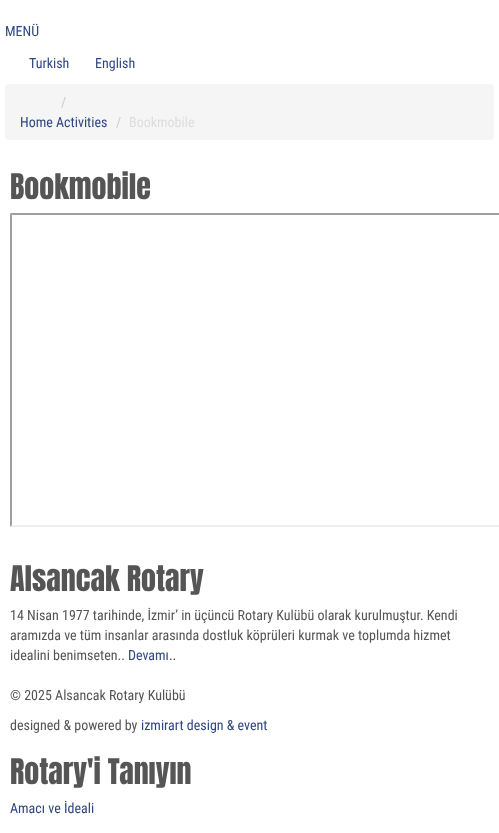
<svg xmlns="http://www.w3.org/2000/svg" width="499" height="833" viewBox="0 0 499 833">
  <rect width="100%" height="100%" fill="#fff"/>
  <rect x="5" y="84" width="489" height="56" rx="4" fill="#f5f5f5"/>
  <path d="M10 213H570L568 215H12Z" fill="#9f9f9f"/>
  <path d="M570 527H10L12 525H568Z" fill="#eee"/>
  <path d="M10 527V213L12 215V525Z" fill="#9f9f9f"/>
  <g font-family="Roboto Condensed" font-size="14" fill="#2f477f">
    <text x="5" y="36">MENÜ</text>
    <text x="29" y="68">Turkish</text>
    <text x="95" y="68">English</text>
  </g>
  <text x="61" y="107" font-family="Roboto Condensed" font-size="14" fill="#ccc">/</text>
  <text x="20" y="127" font-family="Roboto Condensed" font-size="14" fill="#2f477f">Home Activities</text>
  <text x="116" y="127" font-family="Roboto Condensed" font-size="14" fill="#ccc">/</text>
  <text x="129" y="127" font-family="Roboto Condensed" font-size="14" fill="#ddd">Bookmobile</text>
  <g font-family="Anton" font-size="30" fill="#555">
    <text x="10" y="199">Bookmobile</text>
    <text x="10" y="591">Alsancak Rotary</text>
  </g>
  <g font-family="Roboto Condensed" font-size="14" fill="#555">
    <text x="10" y="620">14 Nisan 1977 tarihinde, İzmir’ in üçüncü Rotary Kulübü olarak kurulmuştur. Kendi</text>
    <text x="10" y="640">aramızda ve tüm insanlar arasında dostluk köprüleri kurmak ve toplumda hizmet</text>
    <text x="10" y="660">idealini benimseten..</text>
  </g>
  <text x="128" y="660" font-family="Roboto Condensed" font-size="14" fill="#2f477f">Devamı..</text>
  <g font-family="Roboto Condensed" font-size="14" fill="#555">
    <text x="10" y="700">© 2025 Alsancak Rotary Kulübü</text>
    <text x="10" y="730">designed &amp; powered by</text>
  </g>
  <text x="141" y="730" font-family="Roboto Condensed" font-size="14" fill="#2f477f">izmirart design &amp; event</text>
  <text x="10" y="784" font-family="Anton" font-size="30" fill="#555">Rotary'i Tanıyın</text>
  <text x="10" y="813" font-family="Roboto Condensed" font-size="14" fill="#2f477f">Amacı ve İdeali</text>
</svg>
